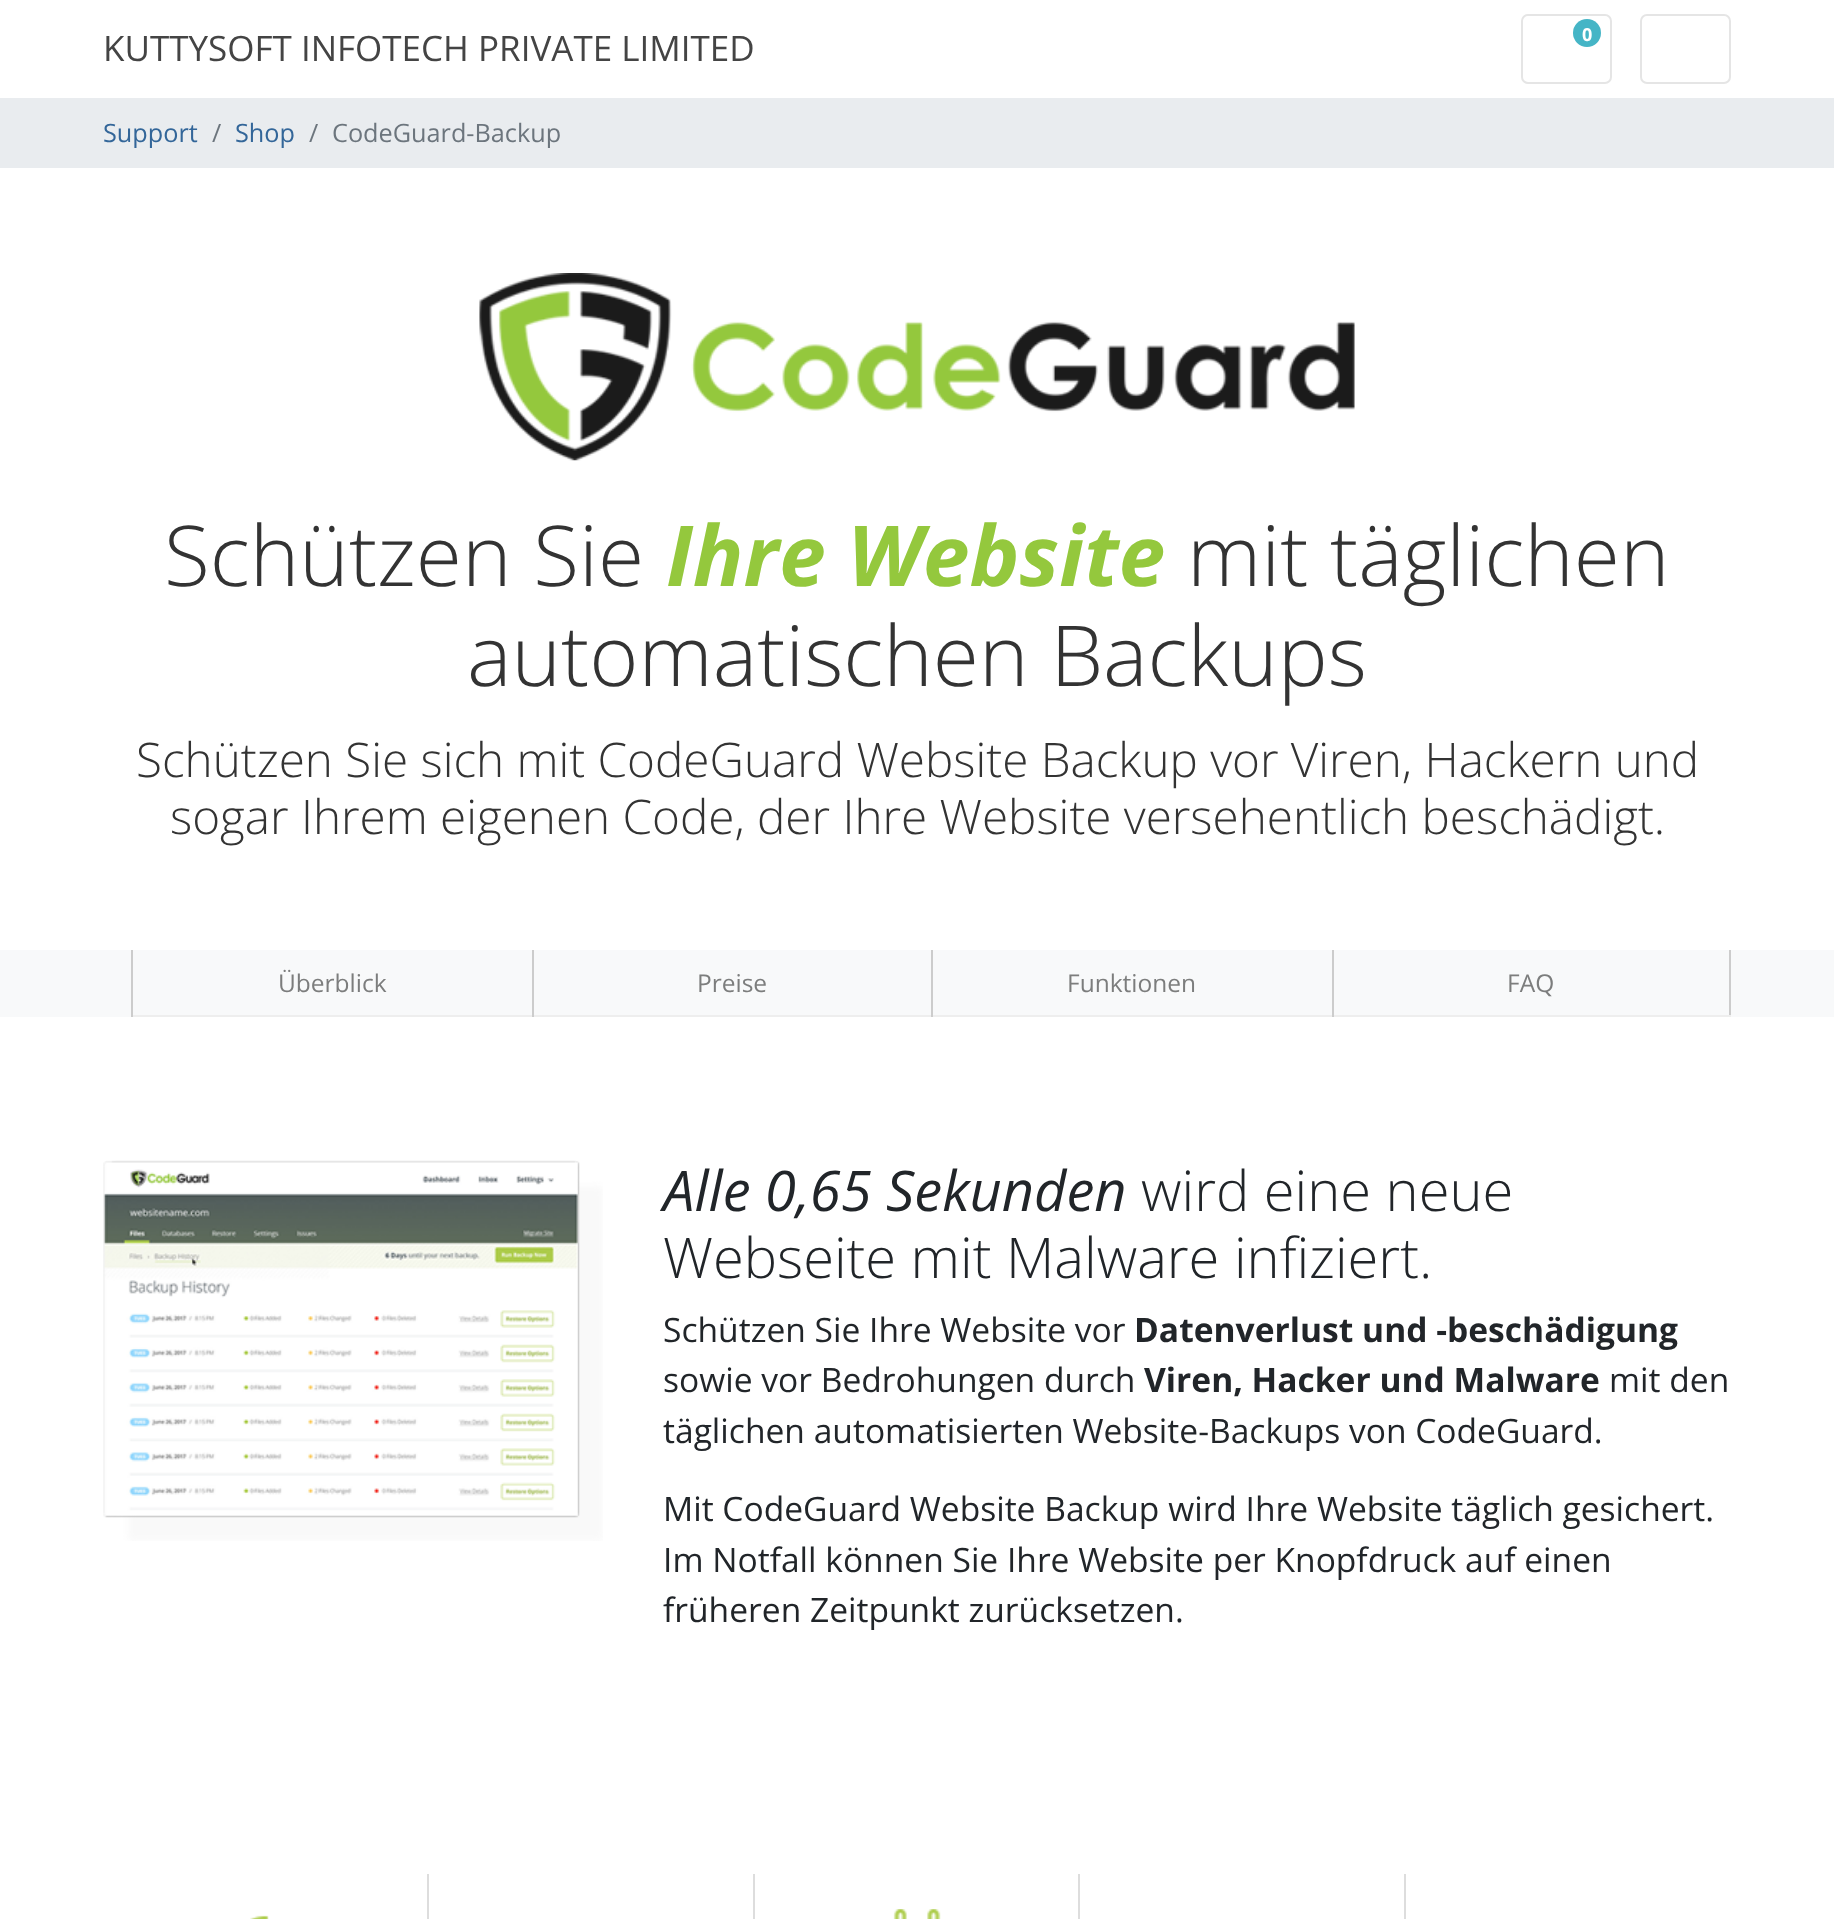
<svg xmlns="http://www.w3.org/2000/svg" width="1834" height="1919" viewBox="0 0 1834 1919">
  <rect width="100%" height="100%" fill="#fff"/>
  <rect x="1522" y="15" width="89" height="68" rx="6" fill="none" stroke="#e5e5e5" stroke-width="2"/>
  <circle cx="1587" cy="33" r="14" fill="#45b5c6"/>
  <rect x="1641" y="15" width="89" height="68" rx="6" fill="none" stroke="#e5e5e5" stroke-width="2"/>
  <path d="M0 98h1834v70H0z" fill="#e9ecef"/>
  <image x="479" y="273" width="876" height="188" href="img/1.png"/>
  <path d="M0 950h1834v67H0z" fill="#f8f9fa"/>
  <path d="M131 1015h1201v2H131z" fill="#eee"/>
  <path d="M131 950h2v67H131z" fill="#ccc"/>
  <path d="M532 950h2v67H532z" fill="#ccc"/>
  <path d="M931 950h2v67H931z" fill="#ccc"/>
  <path d="M1729 950h2v67H1729z" fill="#ccc"/>
  <path d="M1332 1015h399v2H1332z" fill="#eee"/>
  <path d="M1332 950h2v67H1332z" fill="#ccc"/>
  <image x="103" y="1160" width="500" height="381" href="img/2.png"/>
  <path d="M427 1874h2v45H427z" fill="#ddd"/>
  <image x="250" y="1915" width="19" height="4" href="img/3.png"/>
  <path d="M753 1874h2v45H753z" fill="#ddd"/>
  <path d="M1078 1874h2v45H1078z" fill="#ddd"/>
  <image x="893" y="1909" width="48" height="10" href="img/4.png"/>
  <path d="M1404 1874h2v45H1404z" fill="#ddd"/>
  <text x="103" y="61" font-family="Open Sans" font-size="35" fill="#444">KUTTYSOFT INFOTECH PRIVATE LIMITED</text>
  <text x="1582" y="41" font-family="Open Sans" font-size="18" font-weight="bold" fill="#fff">0</text>
  <text x="103" y="142" font-family="Open Sans" font-size="25.25" fill="#369">Support</text>
  <text x="212" y="142" font-family="Open Sans" font-size="25.25" fill="#6c757d">/</text>
  <text x="235" y="142" font-family="Open Sans" font-size="25.25" fill="#369">Shop</text>
  <g font-family="Open Sans" font-size="25.25" fill="#6c757d">
    <text x="309" y="142">/</text>
    <text x="332" y="142">CodeGuard-Backup</text>
  </g>
  <text x="164" y="586" font-family="Open Sans" font-size="84" font-weight="300" fill="#333">Schützen Sie</text>
  <text x="666" y="586" font-family="Open Sans" font-size="84" font-weight="bold" font-style="italic" fill="#94c83d">Ihre Website</text>
  <g font-family="Open Sans" font-size="84" font-weight="300" fill="#333">
    <text x="1187" y="586">mit täglichen</text>
    <text x="467" y="686">automatischen Backups</text>
  </g>
  <g font-family="Open Sans" font-size="47.6" font-weight="300" fill="#333">
    <text x="136" y="777">Schützen Sie sich mit CodeGuard Website Backup vor Viren, Hackern und</text>
    <text x="170" y="834">sogar Ihrem eigenen Code, der Ihre Website versehentlich beschädigt.</text>
  </g>
  <g font-family="Open Sans" font-size="24.5" fill="#7c7d7d">
    <text x="278" y="992">Überblick</text>
    <text x="697" y="992">Preise</text>
    <text x="1067" y="992">Funktionen</text>
    <text x="1507" y="992">FAQ</text>
  </g>
  <text x="663" y="1211" font-family="Open Sans" font-size="56" font-style="italic" fill="#212529">Alle 0,65 Sekunden</text>
  <g font-family="Open Sans" font-size="56" font-weight="300" fill="#212529">
    <text x="1141" y="1211">wird eine neue</text>
    <text x="663" y="1278">Webseite mit Malware infiziert.</text>
  </g>
  <text x="663" y="1342" font-family="Open Sans" font-size="33.6" fill="#212529">Schützen Sie Ihre Website vor</text>
  <text x="1134" y="1342" font-family="Open Sans" font-size="33.6" font-weight="bold" fill="#212529">Datenverlust und -beschädigung</text>
  <text x="663" y="1392" font-family="Open Sans" font-size="33.6" fill="#212529">sowie vor Bedrohungen durch</text>
  <text x="1144" y="1392" font-family="Open Sans" font-size="33.6" font-weight="bold" fill="#212529">Viren, Hacker und Malware</text>
  <g font-family="Open Sans" font-size="33.6" fill="#212529">
    <text x="1609" y="1392">mit den</text>
    <text x="663" y="1443">täglichen automatisierten Website-Backups von CodeGuard.</text>
    <text x="663" y="1521">Mit CodeGuard Website Backup wird Ihre Website täglich gesichert.</text>
    <text x="663" y="1572">Im Notfall können Sie Ihre Website per Knopfdruck auf einen</text>
    <text x="663" y="1622">früheren Zeitpunkt zurücksetzen.</text>
  </g>
</svg>
